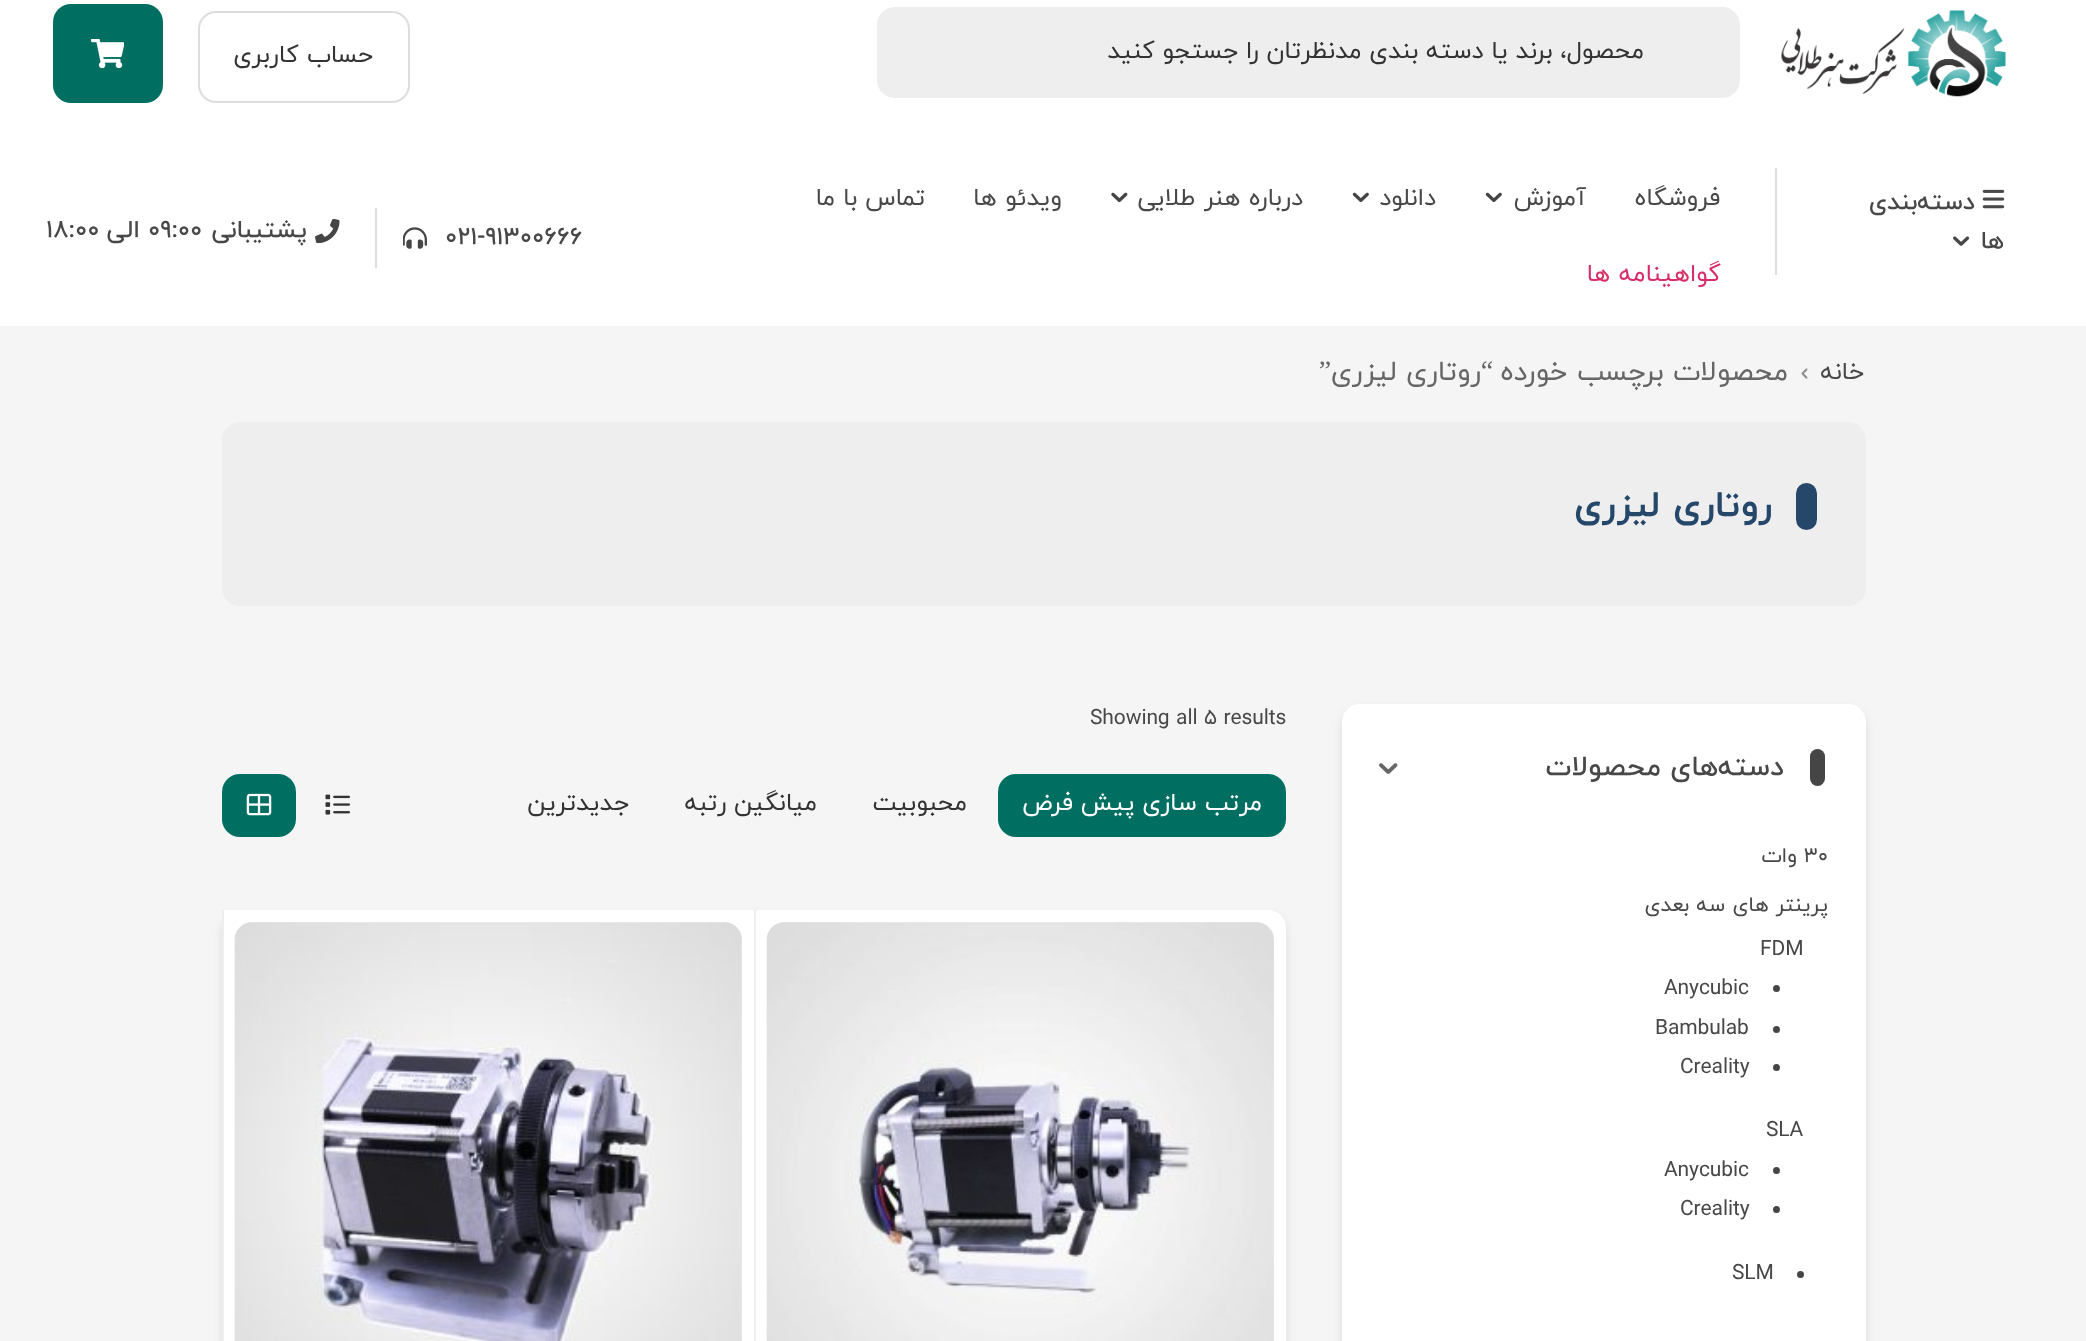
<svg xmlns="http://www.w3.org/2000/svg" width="2086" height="1341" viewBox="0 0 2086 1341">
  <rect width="100%" height="100%" fill="#f5f5f5"/>
  <path d="M0 0h2086v326H0z" fill="#fff"/>
  <image x="1781" y="10" width="225" height="87" href="img/1.png"/>
  <rect x="877" y="7" width="863" height="91" rx="18" fill="#eee"/>
  <rect x="199" y="12" width="210" height="90" rx="17" fill="none" stroke="#ddd" stroke-width="2"/>
  <rect x="53" y="4" width="110" height="99" rx="18" fill="#006f62"/>
  <image x="91" y="39" width="33" height="29" href="img/2.png"/>
  <path d="M1775 168h2v107H1775z" fill="#ddd"/>
  <image x="1982" y="189" width="23" height="20" href="img/3.png"/>
  <image x="1953" y="236" width="17" height="10" href="img/4.png"/>
  <image x="1485" y="192" width="17" height="11" href="img/5.png"/>
  <image x="1352" y="192" width="17" height="11" href="img/5.png"/>
  <image x="1111" y="192" width="17" height="11" href="img/6.png"/>
  <path d="M375 208h2v60H375z" fill="#ddd"/>
  <image x="403" y="227" width="24" height="22" href="img/7.png"/>
  <image x="315" y="219" width="25" height="24" href="img/8.png"/>
  <image x="1801" y="368" width="7" height="11" href="img/9.png"/>
  <rect x="222" y="422" width="1644" height="184" rx="18" fill="#eee"/>
  <rect x="1796" y="483" width="21" height="47" rx="10.5" fill="#25486a"/>
  <rect x="1342" y="709" width="524" height="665" rx="18" fill="#0000001a" filter="blur(5px)"/>
  <rect x="1342" y="704" width="524" height="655" rx="18" fill="#fff"/>
  <rect x="1810" y="749" width="15" height="37" rx="7.5" fill="#454545"/>
  <image x="1379" y="763" width="19" height="11" href="img/10.png"/>
  <circle cx="1776.5" cy="988.5" r="3.5" fill="#454545"/>
  <circle cx="1776.5" cy="1029.5" r="3.5" fill="#454545"/>
  <circle cx="1776.5" cy="1067.5" r="3.5" fill="#454545"/>
  <circle cx="1776.5" cy="1170.5" r="3.5" fill="#454545"/>
  <circle cx="1776.5" cy="1209.5" r="3.5" fill="#454545"/>
  <circle cx="1800.5" cy="1274.5" r="3.5" fill="#454545"/>
  <rect x="998" y="774" width="288" height="63" rx="18" fill="#006f62"/>
  <image x="325" y="794" width="25" height="21" href="img/11.png"/>
  <rect x="222" y="774" width="74" height="63" rx="18" fill="#006f62"/>
  <image x="246" y="793" width="26" height="23" href="img/12.png"/>
  <rect x="222" y="915" width="1064" height="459" rx="18" fill="#0000001a" filter="blur(5px)"/>
  <path d="M756 910H1268C1278 910 1286 918 1286 928V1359H756Z" fill="#fff"/>
  <path d="M754 910h2v431H754z" fill="#eee"/>
  <rect x="767" y="922" width="507" height="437" rx="18" fill="#f5f5f5"/>
  <image x="766" y="922" width="508" height="419" href="img/13.png"/>
  <path d="M224 910h530v431H224z" fill="#fff"/>
  <path d="M222 910h2v431H222z" fill="#eee"/>
  <rect x="235" y="922" width="507" height="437" rx="18" fill="#f5f5f5"/>
  <image x="234" y="922" width="508" height="419" href="img/14.png"/>
  <text x="1644" y="58" font-family="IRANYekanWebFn" font-size="24.5" direction="rtl" fill="#333">محصول، برند یا دسته بندی مدنظرتان را جستجو کنید</text>
  <text x="373" y="62" word-spacing="1" font-family="IRANYekanWebFn" font-size="24.5" letter-spacing="-0.1" direction="rtl" fill="#333">حساب کاربری</text>
  <g font-family="IRANYekanWebFn" font-size="24.5" font-weight="500" letter-spacing="-0.1" direction="rtl" fill="#484848">
    <text x="1975" y="209">دسته‌بندی</text>
    <text x="2004" y="248">ها</text>
  </g>
  <g font-family="IRANYekanWebFn" font-size="24.5" letter-spacing="-0.1" direction="rtl" fill="#484848">
    <text x="1720" y="205">فروشگاه</text>
    <text x="1586" y="205">آموزش</text>
    <text x="1436" y="205">دانلود</text>
    <text x="1303" y="205" word-spacing="1">درباره هنر طلایی</text>
    <text x="1062" y="205" word-spacing="1">ویدئو ها</text>
    <text x="925" y="205">تماس با ما</text>
  </g>
  <text x="1721" y="281" word-spacing="1" font-family="IRANYekanWebFn" font-size="24.5" letter-spacing="-0.1" direction="rtl" fill="#d72f65">گواهینامه ها</text>
  <text x="445" y="244" font-family="IRANYekanWebFn" font-size="24.5" font-weight="500" letter-spacing="-0.1" fill="#484848">021-91300666</text>
  <text x="307" y="237" font-family="IRANYekanWebFn" font-size="24.5" font-weight="500" letter-spacing="-0.1" direction="rtl" fill="#484848">پشتیبانی</text>
  <text x="148" y="237" font-family="IRANYekanWebFn" font-size="24.5" font-weight="500" letter-spacing="-0.1" fill="#484848">09:00</text>
  <text x="140" y="237" font-family="IRANYekanWebFn" font-size="24.5" font-weight="500" letter-spacing="-0.1" direction="rtl" fill="#484848">الی</text>
  <text x="46" y="237" font-family="IRANYekanWebFn" font-size="24.5" font-weight="500" letter-spacing="-0.1" fill="#484848">18:00</text>
  <text x="1864" y="379" font-family="IRANYekanWebFn" font-size="24.5" letter-spacing="-0.1" direction="rtl" fill="#484848">خانه</text>
  <text x="1788" y="380" word-spacing="1" font-family="IRANYekanWebFn" font-size="28" letter-spacing="-0.1" direction="rtl" fill="#666">محصولات برچسب خورده</text>
  <text x="1493" y="380" font-family="Liberation Serif" font-size="28" letter-spacing="-0.1" direction="rtl" fill="#666">“</text>
  <text x="1481" y="380" word-spacing="1" font-family="IRANYekanWebFn" font-size="28" letter-spacing="-0.1" direction="rtl" fill="#666">روتاری لیزری</text>
  <text x="1331" y="380" font-family="Liberation Serif" font-size="28" letter-spacing="-0.1" direction="rtl" fill="#666">”</text>
  <text x="1772" y="516" word-spacing="1" font-family="IRANYekanWebFn" font-size="36.75" font-weight="bold" letter-spacing="-0.1" direction="rtl" fill="#25486a">روتاری لیزری</text>
  <text x="1784" y="775" word-spacing="1" font-family="IRANYekanWebFn" font-size="28" font-weight="500" letter-spacing="-0.1" direction="rtl" fill="#484848">دسته‌های محصولات</text>
  <text x="1804" y="862" font-family="IRANYekanWebFn" font-size="21" letter-spacing="-0.1" fill="#484848">30</text>
  <g font-family="IRANYekanWebFn" font-size="21" letter-spacing="-0.1" direction="rtl" fill="#484848">
    <text x="1797" y="862">وات</text>
    <text x="1828" y="911" word-spacing="0.5">پرینتر های سه بعدی</text>
  </g>
  <g font-family="IRANYekanWebFn" font-size="21" letter-spacing="-0.1" fill="#484848">
    <text x="1760" y="955">FDM</text>
    <text x="1664" y="994">Anycubic</text>
    <text x="1655" y="1034">Bambulab</text>
    <text x="1680" y="1073">Creality</text>
    <text x="1766" y="1136">SLA</text>
    <text x="1664" y="1176">Anycubic</text>
    <text x="1680" y="1215">Creality</text>
    <text x="1732" y="1279">SLM</text>
    <text x="1090" y="724">Showing all 5 results</text>
  </g>
  <text x="1262" y="810" font-family="IRANYekanWebFn" font-size="24.5" direction="rtl" fill="#fff">مرتب سازی پیش فرض</text>
  <g font-family="IRANYekanWebFn" font-size="24.5" direction="rtl" fill="#333">
    <text x="967" y="810">محبوبیت</text>
    <text x="817" y="810">میانگین رتبه</text>
    <text x="629" y="810">جدیدترین</text>
  </g>
</svg>
